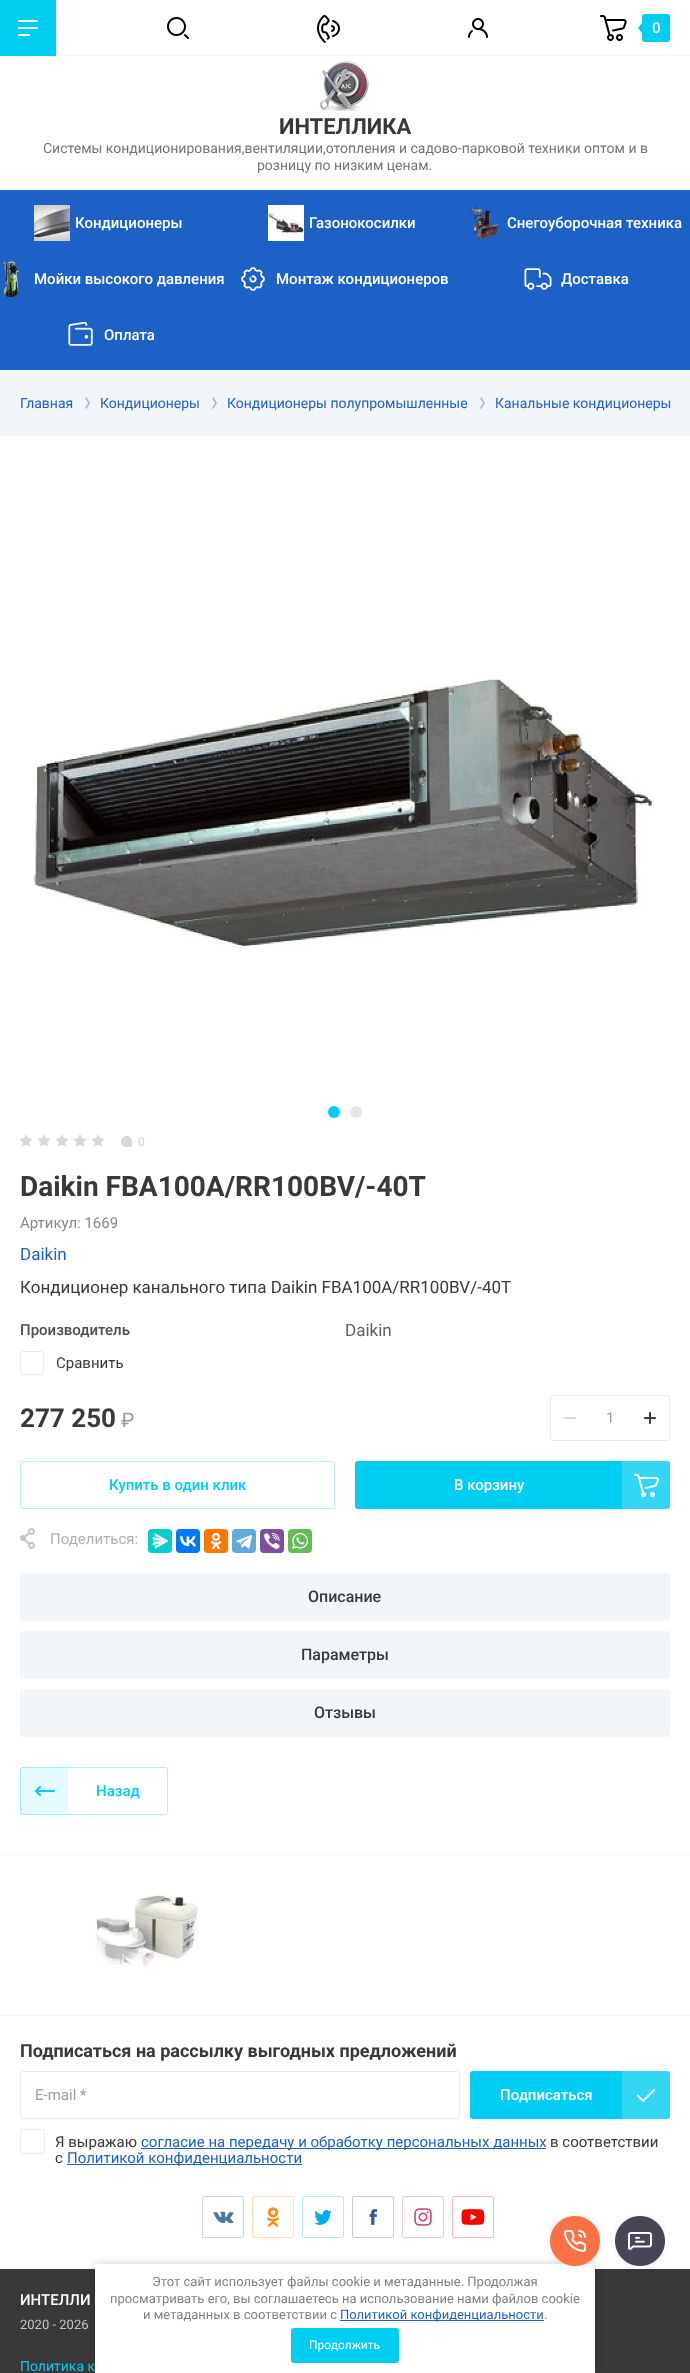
<svg xmlns="http://www.w3.org/2000/svg" width="690" height="2373" viewBox="0 0 690 2373">
  <rect width="100%" height="100%" fill="#f2f6f9"/>
  <path d="M0 0h690v190H0z" fill="#fff"/>
  <path d="M56 55h634v1H56z" fill="#f5f5f5"/>
  <path d="M0 0h56v56H0z" fill="#00cdf2"/>
  <image x="18" y="20" width="20" height="16" href="img/1.png"/>
  <image x="167" y="17" width="22" height="22" href="img/2.png"/>
  <image x="317" y="15" width="23" height="28" href="img/3.png"/>
  <image x="468" y="18" width="20" height="20" href="img/4.png"/>
  <image x="600" y="15" width="27" height="26" href="img/5.png"/>
  <rect x="642" y="14" width="28" height="28" rx="3" fill="#00cdf2"/>
  <path d="M642 23V33L638 28Z" fill="#00cdf2"/>
  <image x="319" y="61" width="52" height="50" href="img/6.png"/>
  <path d="M0 190h690v180H0z" fill="#1d60c6"/>
  <image x="34" y="205" width="36" height="36" href="img/7.png"/>
  <image x="268" y="205" width="36" height="36" href="img/8.png"/>
  <image x="469" y="205" width="30" height="36" href="img/9.png"/>
  <image x="3" y="261" width="16" height="36" href="img/10.png"/>
  <image x="241" y="267" width="24" height="24" href="img/11.png"/>
  <image x="524" y="268" width="28" height="22" href="img/12.png"/>
  <image x="68" y="321" width="25" height="25" href="img/13.png"/>
  <image x="85" y="397" width="5" height="12" href="img/14.png"/>
  <image x="212" y="397" width="5" height="12" href="img/14.png"/>
  <image x="480" y="397" width="5" height="12" href="img/14.png"/>
  <path d="M0 436h690v1418H0z" fill="#fff"/>
  <path d="M0 1854h690v1H0z" fill="#f5f5f5"/>
  <image x="33" y="676" width="620" height="271" href="img/15.png"/>
  <circle cx="334" cy="1112" r="6" fill="#00cdf2"/>
  <circle cx="356" cy="1112" r="6" fill="#e6e6e6"/>
  <image x="19" y="1134" width="86" height="13" href="img/16.png"/>
  <image x="121" y="1136" width="12" height="11" href="img/17.png"/>
  <rect x="20.5" y="1351.5" width="23" height="23" rx="2.5" fill="none" stroke="#ebebeb"/>
  <rect x="550.5" y="1395.5" width="119" height="45" rx="2.5" fill="none" stroke="#ebebeb"/>
  <image x="564" y="1417" width="12" height="2" href="img/18.png"/>
  <image x="644" y="1412" width="12" height="12" href="img/19.png"/>
  <rect x="20.5" y="1461.5" width="314" height="47" rx="2.5" fill="none" stroke="#b3f0fb"/>
  <rect x="355" y="1461" width="315" height="48" rx="3" fill="#00cdf2"/>
  <path d="M622 1461H667C668.5 1461 670 1462.5 670 1464V1506C670 1507.5 668.5 1509 667 1509H622Z" fill="#ffffff33"/>
  <image x="634" y="1474" width="25" height="23" href="img/20.png"/>
  <image x="20" y="1528" width="15" height="21" href="img/21.png"/>
  <rect x="148" y="1529" width="24" height="24" rx="4" fill="#03cece"/>
  <image x="152" y="1533" width="16" height="16" href="img/22.png"/>
  <rect x="176" y="1529" width="24" height="24" rx="4" fill="#07f"/>
  <image x="180" y="1536" width="16" height="11" href="img/23.png"/>
  <rect x="204" y="1529" width="24" height="24" rx="4" fill="#f70"/>
  <image x="210" y="1533" width="12" height="16" href="img/24.png"/>
  <rect x="232" y="1529" width="24" height="24" rx="4" fill="#64a9dc"/>
  <image x="236" y="1535" width="16" height="14" href="img/25.png"/>
  <rect x="260" y="1529" width="24" height="24" rx="4" fill="#7b519d"/>
  <image x="264" y="1533" width="16" height="16" href="img/26.png"/>
  <rect x="288" y="1529" width="24" height="24" rx="4" fill="#65bc54"/>
  <image x="292" y="1533" width="16" height="16" href="img/27.png"/>
  <rect x="20" y="1573" width="650" height="48" rx="3" fill="#f2f6f9"/>
  <rect x="20" y="1631" width="650" height="48" rx="3" fill="#f2f6f9"/>
  <rect x="20" y="1689" width="650" height="48" rx="3" fill="#f2f6f9"/>
  <rect x="20.5" y="1767.5" width="147" height="47" rx="2.5" fill="none" stroke="#b3f0fb"/>
  <path d="M23 1767H68V1815H23C21.5 1815 20 1813.5 20 1812V1770C20 1768.5 21.5 1767 23 1767Z" fill="#00cdf21a"/>
  <image x="34" y="1786" width="21" height="10" href="img/28.png"/>
  <path d="M0 1855h690v160H0z" fill="#fff"/>
  <image x="93" y="1893" width="107" height="74" href="img/29.png"/>
  <path d="M0 2016h690v253H0z" fill="#fff"/>
  <path d="M0 2015h690v1H0z" fill="#f5f5f5"/>
  <rect x="20.5" y="2071.5" width="439" height="47" rx="2.5" fill="none" stroke="#ebebeb"/>
  <rect x="470" y="2071" width="200" height="48" rx="3" fill="#00cdf2"/>
  <path d="M622 2071H667C668.5 2071 670 2072.5 670 2074V2116C670 2117.5 668.5 2119 667 2119H622Z" fill="#ffffff33"/>
  <image x="637" y="2089" width="18" height="13" href="img/30.png"/>
  <rect x="20.5" y="2129.5" width="24" height="24" rx="1.5" fill="none" stroke="#ebebeb"/>
  <path d="M141 2148h405v1H141z" fill="#1d60c6"/>
  <path d="M67 2164h235v1H67z" fill="#1d60c6"/>
  <image x="202" y="2196" width="42" height="42" href="img/31.png"/>
  <image x="252" y="2196" width="42" height="42" href="img/32.png"/>
  <image x="302" y="2196" width="42" height="42" href="img/33.png"/>
  <image x="352" y="2196" width="42" height="42" href="img/34.png"/>
  <image x="402" y="2196" width="42" height="42" href="img/35.png"/>
  <image x="452" y="2196" width="42" height="42" href="img/36.png"/>
  <path d="M0 2269h690v104H0z" fill="#393939"/>
  <path d="M95 2265h500v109H95z" fill="#0000003b" filter="blur(5px)"/>
  <path d="M95 2264h500v109H95z" fill="#fff"/>
  <image x="550" y="2216" width="50" height="50" href="img/37.png"/>
  <image x="615" y="2216" width="50" height="50" href="img/38.png"/>
  <path d="M340 2320h204v1H340z" fill="#1d60c6"/>
  <rect x="291" y="2328" width="108" height="35" rx="3" fill="#00cdf2"/>
  <text x="652" y="33" font-family="Roboto" font-size="15" font-weight="500" fill="#fff">0</text>
  <text x="279" y="134" font-family="Roboto" font-size="22" font-weight="bold" fill="#393939">ИНТЕЛЛИКА</text>
  <g font-family="Roboto" font-size="14" fill="#747474">
    <text x="43" y="153">Системы кондиционирования,вентиляции,отопления и садово-парковой техники оптом и в</text>
    <text x="257" y="170">розницу по низким ценам.</text>
  </g>
  <g font-family="Roboto" font-size="15" font-weight="500" fill="#fff">
    <text x="75" y="228">Кондиционеры</text>
    <text x="309" y="228">Газонокосилки</text>
    <text x="507" y="228">Снегоуборочная техника</text>
    <text x="34" y="284">Мойки высокого давления</text>
    <text x="276" y="284">Монтаж кондиционеров</text>
    <text x="561" y="284">Доставка</text>
    <text x="104" y="340">Оплата</text>
  </g>
  <g font-family="Roboto" font-size="14" fill="#1d60c6">
    <text x="20" y="408">Главная</text>
    <text x="100" y="408">Кондиционеры</text>
    <text x="227" y="408">Кондиционеры полупромышленные</text>
    <text x="495" y="408">Канальные кондиционеры</text>
  </g>
  <text x="138" y="1146" font-family="Roboto" font-size="12" font-weight="500" fill="#d7d7d7">0</text>
  <text x="20" y="1196" font-family="Roboto" font-size="28" font-weight="bold" fill="#393939">Daikin FBA100A/RR100BV/-40T</text>
  <text x="20" y="1228" font-family="Roboto" font-size="15" fill="#888">Артикул: 1669</text>
  <text x="20" y="1260" font-family="Roboto" font-size="17" fill="#1d60c6">Daikin</text>
  <text x="20" y="1293" font-family="Roboto" font-size="17" fill="#393939">Кондиционер канального типа Daikin FBA100A/RR100BV/-40T</text>
  <text x="20" y="1335" font-family="Roboto" font-size="15" font-weight="500" fill="#4d4d4d">Производитель</text>
  <text x="345" y="1336" font-family="Roboto" font-size="17" fill="#616161">Daikin</text>
  <text x="56" y="1368" font-family="Roboto" font-size="15" fill="#393939">Сравнить</text>
  <text x="20" y="1427" font-family="Roboto" font-size="26" font-weight="bold" fill="#393939">277 250</text>
  <text x="121" y="1427" font-family="Roboto" font-size="20" fill="#9c9c9c">₽</text>
  <text x="606" y="1423" font-family="Roboto" font-size="15" fill="#9c9c9c">1</text>
  <text x="109" y="1490" font-family="Roboto" font-size="15" font-weight="500" fill="#00cdf2">Купить в один клик</text>
  <text x="454" y="1490" font-family="Roboto" font-size="15" font-weight="500" fill="#fff">В корзину</text>
  <text x="50" y="1544" font-family="Roboto" font-size="15" fill="#b0b0b0">Поделиться:</text>
  <g font-family="Roboto" font-size="16" font-weight="500" fill="#393939">
    <text x="308" y="1602">Описание</text>
    <text x="301" y="1660">Параметры</text>
    <text x="314" y="1718">Отзывы</text>
  </g>
  <text x="96" y="1796" font-family="Roboto" font-size="15" font-weight="500" fill="#00cdf2">Назад</text>
  <text x="20" y="2057" font-family="Roboto" font-size="18" font-weight="bold" fill="#393939">Подписаться на рассылку выгодных предложений</text>
  <text x="35" y="2100" font-family="Roboto" font-size="15" fill="#9c9c9c">E-mail *</text>
  <text x="500" y="2100" font-family="Roboto" font-size="15" font-weight="500" fill="#fff">Подписаться</text>
  <text x="55" y="2147" font-family="Roboto" font-size="15" fill="#393939">Я выражаю</text>
  <text x="141" y="2147" font-family="Roboto" font-size="15" fill="#1d60c6">согласие на передачу и обработку персональных данных</text>
  <g font-family="Roboto" font-size="15" fill="#393939">
    <text x="550" y="2147">в соответствии</text>
    <text x="55" y="2163">с</text>
  </g>
  <text x="67" y="2163" font-family="Roboto" font-size="15" fill="#1d60c6">Политикой конфиденциальности</text>
  <text x="20" y="2305" font-family="Roboto" font-size="15" font-weight="500" fill="#fff">ИНТЕЛЛИ</text>
  <text x="20" y="2329" font-family="Roboto" font-size="13" fill="#c4c4c4">2020 - 2026</text>
  <text x="20" y="2371" font-family="Roboto" font-size="14" fill="#00cdf2">Политика к</text>
  <g font-family="Roboto" font-size="13" fill="#808080">
    <text x="152" y="2286">Этот сайт использует файлы cookie и метаданные. Продолжая</text>
    <text x="110" y="2303">просматривать его, вы соглашаетесь на использование нами файлов cookie</text>
    <text x="143" y="2319">и метаданных в соответствии с</text>
  </g>
  <text x="340" y="2319" font-family="Roboto" font-size="13" fill="#1d60c6">Политикой конфиденциальности</text>
  <text x="544" y="2319" font-family="Roboto" font-size="13" fill="#808080">.</text>
  <text x="309" y="2349" font-family="Roboto" font-size="12" fill="#fff">Продолжить</text>
</svg>
